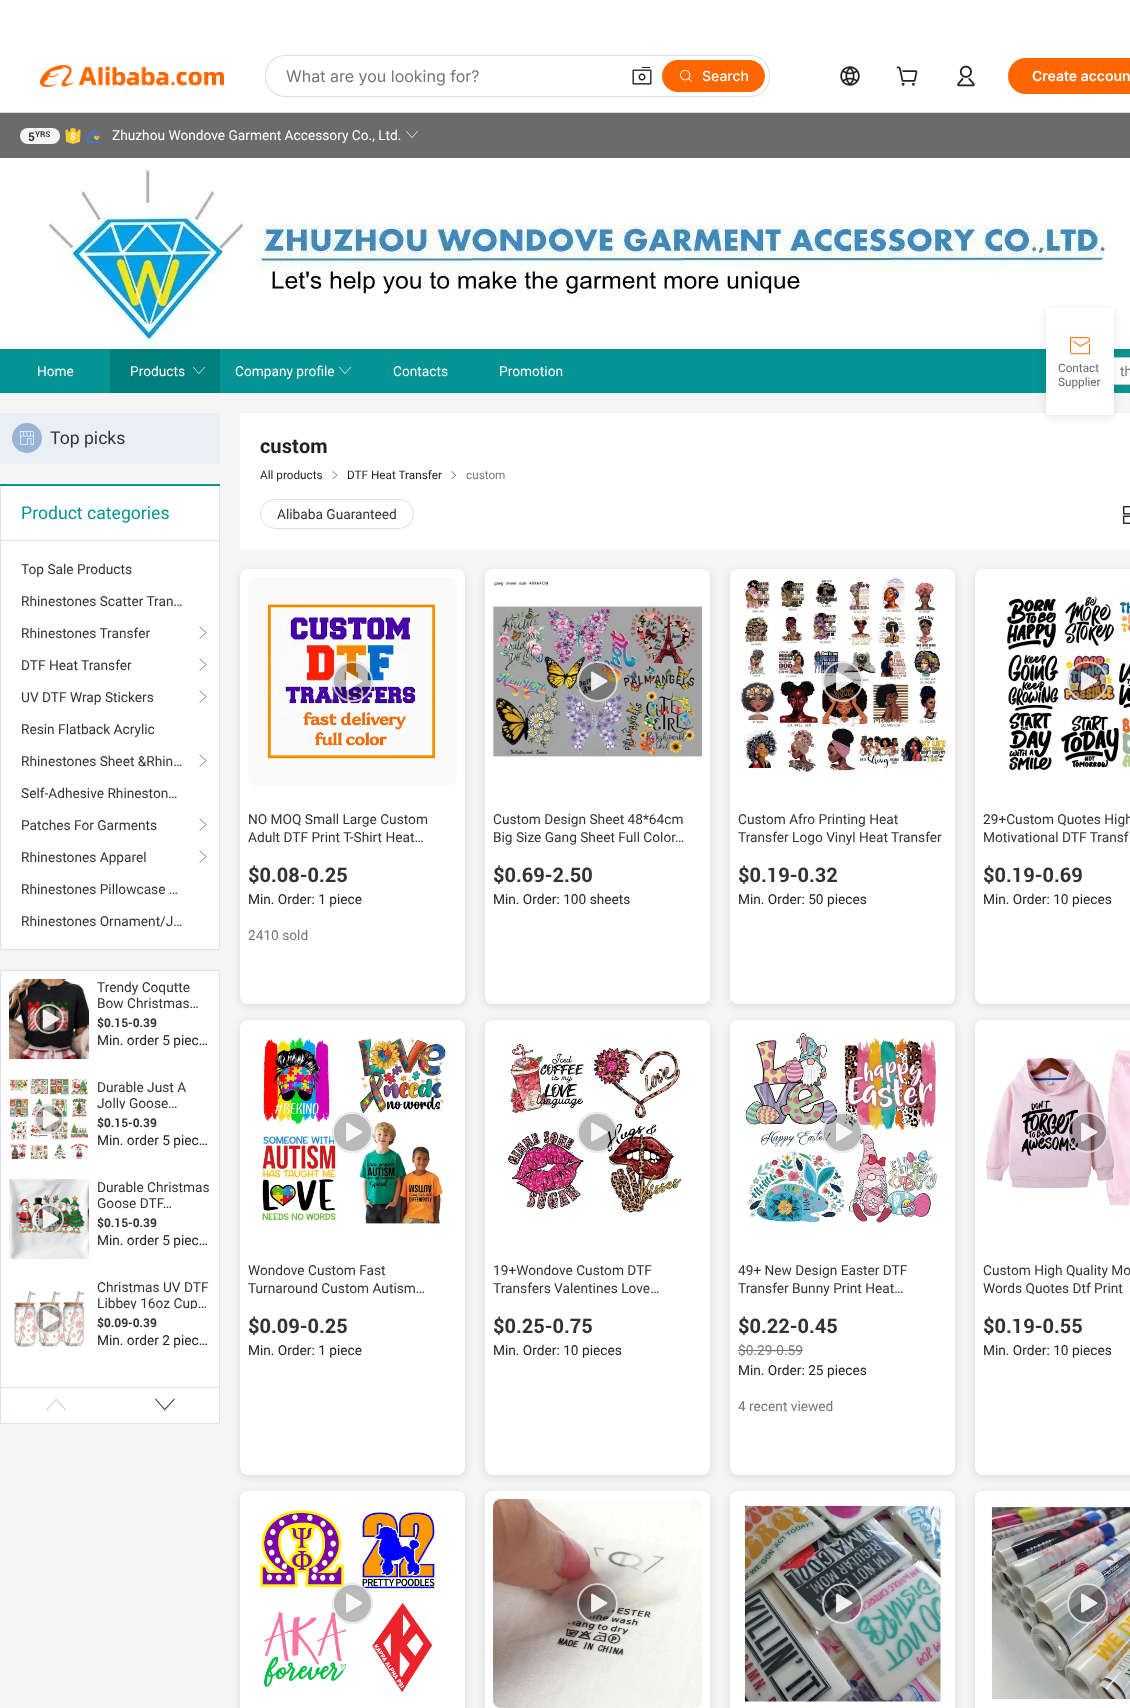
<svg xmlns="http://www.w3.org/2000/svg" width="1130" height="1708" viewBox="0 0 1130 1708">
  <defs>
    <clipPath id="clip1"><path d="M97 1079h114v30H97z"/></clipPath>
    <clipPath id="clip2"><path d="M97 1279h114v30H97z"/></clipPath>
  </defs>
  <rect width="100%" height="100%" fill="#fff"/>
  <path d="M0 112h1130v1H0z" fill="#ddd"/>
  <image x="40" y="65" width="184" height="22" href="img/1.png"/>
  <rect x="265" y="55" width="505" height="42" rx="20" fill="#ddd"/>
  <rect x="266" y="56" width="503" height="40" rx="19" fill="#fff"/>
  <image x="632" y="67" width="20" height="18" href="img/2.png"/>
  <rect x="662" y="60" width="103" height="32" rx="16" fill="#f60"/>
  <image x="680" y="70" width="12" height="12" href="img/3.png"/>
  <image x="840" y="66" width="20" height="20" href="img/4.png"/>
  <image x="896" y="66" width="22" height="20" href="img/5.png"/>
  <image x="957" y="65" width="18" height="22" href="img/6.png"/>
  <rect x="1008" y="58" width="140" height="36" rx="18" fill="#f60"/>
  <path d="M0 393h1130v1315H0z" fill="#f5f5f5"/>
  <path d="M0 113h1130v45H0z" fill="#6b6b6b"/>
  <rect x="20" y="128" width="40" height="16" rx="8" fill="#f5f5f5"/>
  <image x="65" y="128" width="16" height="16" href="img/7.png"/>
  <image x="86" y="129" width="16" height="15" href="img/8.png"/>
  <image x="406" y="131" width="12" height="7" href="img/9.png"/>
  <image x="0" y="158" width="1130" height="191" href="img/10.png"/>
  <path d="M0 349h1130v44H0z" fill="#069393"/>
  <path d="M110 349h110v44H110z" fill="#007f7f"/>
  <image x="193" y="367" width="12" height="7" href="img/11.png"/>
  <image x="339" y="367" width="12" height="7" href="img/12.png"/>
  <path d="M1065 357H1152V385H1065C1057 385 1051 379 1051 371C1051 363 1057 357 1065 357ZM1065 358H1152V384H1065C1058 384 1052 378 1052 371C1052 364 1058 358 1065 358Z" fill="#c4c6cf" fill-rule="evenodd"/>
  <path d="M1114 358h16v26H1114z" fill="#fff"/>
  <path d="M0 413h220v51H0z" fill="#e9eff5"/>
  <circle cx="27" cy="438" r="15" fill="#97b3d5"/>
  <image x="20" y="431" width="14" height="14" href="img/13.png"/>
  <path d="M1 486h218v463H1z" fill="#fff"/>
  <path d="M0 484h220v2H0z" fill="#069393"/>
  <path d="M219 486h1v464H219z" fill="#dbe3ef"/>
  <path d="M0 949h220v1H0z" fill="#dbe3ef"/>
  <path d="M0 486h1v464H0z" fill="#dbe3ef"/>
  <path d="M1 540h218v1H1z" fill="#dbe3ef"/>
  <image x="199" y="626" width="8" height="13" href="img/14.png"/>
  <image x="199" y="658" width="8" height="13" href="img/14.png"/>
  <image x="199" y="690" width="8" height="13" href="img/14.png"/>
  <image x="199" y="754" width="8" height="13" href="img/14.png"/>
  <image x="199" y="818" width="8" height="13" href="img/14.png"/>
  <image x="199" y="850" width="8" height="13" href="img/14.png"/>
  <path d="M0.5 970.5h219v453H0.5z" fill="#fff" stroke="#dbe3ef"/>
  <image x="9" y="979" width="80" height="80" href="img/15.png"/>
  <circle cx="49" cy="1019" r="15" fill="#00000045"/>
  <circle cx="49" cy="1019" r="14" fill="none" stroke="#ffffffb8" stroke-width="2"/>
  <image x="42" y="1009" width="18" height="20" href="img/16.png"/>
  <image x="9" y="1079" width="80" height="80" href="img/17.png"/>
  <circle cx="49" cy="1119" r="15" fill="#00000045"/>
  <circle cx="49" cy="1119" r="14" fill="none" stroke="#ffffffb8" stroke-width="2"/>
  <image x="42" y="1109" width="18" height="20" href="img/18.png"/>
  <image x="9" y="1179" width="80" height="80" href="img/19.png"/>
  <circle cx="49" cy="1219" r="15" fill="#00000045"/>
  <circle cx="49" cy="1219" r="14" fill="none" stroke="#ffffffb8" stroke-width="2"/>
  <image x="42" y="1209" width="18" height="20" href="img/20.png"/>
  <image x="14" y="1291" width="71" height="56" href="img/21.png"/>
  <circle cx="49" cy="1319" r="15" fill="#00000045"/>
  <circle cx="49" cy="1319" r="14" fill="none" stroke="#ffffffb8" stroke-width="2"/>
  <image x="43" y="1309" width="17" height="20" href="img/22.png"/>
  <path d="M1 1387h218v1H1z" fill="#dbe3ef"/>
  <image x="46" y="1398" width="20" height="13" href="img/23.png"/>
  <image x="155" y="1398" width="20" height="13" href="img/24.png"/>
  <path d="M240 413h890v136H240z" fill="#fff"/>
  <image x="332" y="471" width="6" height="9" href="img/25.png"/>
  <image x="451" y="471" width="5" height="9" href="img/26.png"/>
  <rect x="260.5" y="499.5" width="153" height="29" rx="14.5" fill="none" stroke="#ddd"/>
  <image x="1123" y="506" width="7" height="18" href="img/27.png"/>
  <rect x="240" y="571" width="225" height="435" rx="8" fill="#0000001a" filter="blur(4px)"/>
  <rect x="240" y="569" width="225" height="435" rx="8" fill="#fff"/>
  <image x="248" y="577" width="209" height="209" href="img/28.png"/>
  <circle cx="352.5" cy="681.5" r="20.5" fill="#00000045"/>
  <circle cx="352.5" cy="681.5" r="19.5" fill="none" stroke="#ffffffb8" stroke-width="2"/>
  <image x="346" y="671" width="17" height="20" href="img/29.png"/>
  <rect x="485" y="571" width="225" height="435" rx="8" fill="#0000001a" filter="blur(4px)"/>
  <rect x="485" y="569" width="225" height="435" rx="8" fill="#fff"/>
  <image x="493" y="577" width="209" height="209" href="img/30.png"/>
  <circle cx="597.5" cy="681.5" r="20.5" fill="#00000045"/>
  <circle cx="597.5" cy="681.5" r="19.5" fill="none" stroke="#ffffffb8" stroke-width="2"/>
  <image x="591" y="671" width="17" height="20" href="img/31.png"/>
  <rect x="730" y="571" width="225" height="435" rx="8" fill="#0000001a" filter="blur(4px)"/>
  <rect x="730" y="569" width="225" height="435" rx="8" fill="#fff"/>
  <image x="738" y="577" width="209" height="209" href="img/32.png"/>
  <circle cx="842.5" cy="681.5" r="20.5" fill="#00000045"/>
  <circle cx="842.5" cy="681.5" r="19.5" fill="none" stroke="#ffffffb8" stroke-width="2"/>
  <image x="836" y="671" width="17" height="20" href="img/33.png"/>
  <rect x="975" y="571" width="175" height="435" rx="8" fill="#0000001a" filter="blur(4px)"/>
  <rect x="975" y="569" width="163" height="435" rx="8" fill="#fff"/>
  <image x="983" y="577" width="147" height="209" href="img/34.png"/>
  <circle cx="1087.5" cy="681.5" r="20.5" fill="#00000045"/>
  <circle cx="1087.5" cy="681.5" r="19.5" fill="none" stroke="#ffffffb8" stroke-width="2"/>
  <image x="1081" y="671" width="17" height="20" href="img/35.png"/>
  <rect x="240" y="1022" width="225" height="455" rx="8" fill="#0000001a" filter="blur(4px)"/>
  <rect x="240" y="1020" width="225" height="455" rx="8" fill="#fff"/>
  <image x="248" y="1028" width="209" height="209" href="img/36.png"/>
  <circle cx="352.5" cy="1132.5" r="20.5" fill="#00000045"/>
  <circle cx="352.5" cy="1132.5" r="19.5" fill="none" stroke="#ffffffb8" stroke-width="2"/>
  <image x="346" y="1122" width="17" height="20" href="img/37.png"/>
  <rect x="485" y="1022" width="225" height="455" rx="8" fill="#0000001a" filter="blur(4px)"/>
  <rect x="485" y="1020" width="225" height="455" rx="8" fill="#fff"/>
  <image x="493" y="1028" width="209" height="209" href="img/38.png"/>
  <circle cx="597.5" cy="1132.5" r="20.5" fill="#00000045"/>
  <circle cx="597.5" cy="1132.5" r="19.5" fill="none" stroke="#ffffffb8" stroke-width="2"/>
  <image x="591" y="1122" width="17" height="20" href="img/39.png"/>
  <rect x="730" y="1022" width="225" height="455" rx="8" fill="#0000001a" filter="blur(4px)"/>
  <rect x="730" y="1020" width="225" height="455" rx="8" fill="#fff"/>
  <image x="738" y="1028" width="209" height="209" href="img/40.png"/>
  <circle cx="842.5" cy="1132.5" r="20.5" fill="#00000045"/>
  <circle cx="842.5" cy="1132.5" r="19.5" fill="none" stroke="#ffffffb8" stroke-width="2"/>
  <image x="836" y="1122" width="17" height="20" href="img/41.png"/>
  <path d="M738 1350h65v1H738z" fill="#767676"/>
  <rect x="975" y="1022" width="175" height="455" rx="8" fill="#0000001a" filter="blur(4px)"/>
  <rect x="975" y="1020" width="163" height="455" rx="8" fill="#fff"/>
  <image x="983" y="1028" width="147" height="209" href="img/42.png"/>
  <circle cx="1087.5" cy="1132.5" r="20.5" fill="#00000045"/>
  <circle cx="1087.5" cy="1132.5" r="19.5" fill="none" stroke="#ffffffb8" stroke-width="2"/>
  <image x="1081" y="1122" width="17" height="20" href="img/43.png"/>
  <rect x="240" y="1493" width="225" height="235" rx="8" fill="#0000001a" filter="blur(4px)"/>
  <rect x="240" y="1491" width="225" height="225" rx="8" fill="#fff"/>
  <image x="248" y="1499" width="209" height="209" href="img/44.png"/>
  <circle cx="352.5" cy="1603.5" r="20.5" fill="#00000045"/>
  <circle cx="352.5" cy="1603.5" r="19.5" fill="none" stroke="#ffffffb8" stroke-width="2"/>
  <image x="346" y="1593" width="17" height="20" href="img/37.png"/>
  <rect x="485" y="1493" width="225" height="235" rx="8" fill="#0000001a" filter="blur(4px)"/>
  <rect x="485" y="1491" width="225" height="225" rx="8" fill="#fff"/>
  <image x="493" y="1499" width="209" height="209" href="img/45.png"/>
  <circle cx="597.5" cy="1603.5" r="20.5" fill="#00000045"/>
  <circle cx="597.5" cy="1603.5" r="19.5" fill="none" stroke="#ffffffb8" stroke-width="2"/>
  <image x="591" y="1593" width="17" height="20" href="img/46.png"/>
  <rect x="730" y="1493" width="225" height="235" rx="8" fill="#0000001a" filter="blur(4px)"/>
  <rect x="730" y="1491" width="225" height="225" rx="8" fill="#fff"/>
  <image x="738" y="1499" width="209" height="209" href="img/47.png"/>
  <circle cx="842.5" cy="1603.5" r="20.5" fill="#00000045"/>
  <circle cx="842.5" cy="1603.5" r="19.5" fill="none" stroke="#ffffffb8" stroke-width="2"/>
  <image x="836" y="1593" width="17" height="20" href="img/48.png"/>
  <rect x="975" y="1493" width="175" height="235" rx="8" fill="#0000001a" filter="blur(4px)"/>
  <rect x="975" y="1491" width="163" height="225" rx="8" fill="#fff"/>
  <image x="983" y="1499" width="147" height="209" href="img/49.png"/>
  <circle cx="1087.5" cy="1603.5" r="20.5" fill="#00000045"/>
  <circle cx="1087.5" cy="1603.5" r="19.5" fill="none" stroke="#ffffffb8" stroke-width="2"/>
  <image x="1081" y="1593" width="17" height="20" href="img/50.png"/>
  <rect x="1046" y="310" width="68" height="107" rx="4" fill="#0000001a" filter="blur(5px)"/>
  <rect x="1046" y="308" width="68" height="107" rx="4" fill="#fff"/>
  <image x="1070" y="337" width="20" height="18" href="img/51.png"/>
  <text x="286" y="82" font-family="Inter" font-size="16" fill="#767676">What are you looking for?</text>
  <text x="702" y="81" font-family="Inter" font-size="14" font-weight="500" fill="#fff">Search</text>
  <text x="1032" y="81" font-family="Inter" font-size="14" font-weight="600" fill="#fff">Create accoun</text>
  <text x="28" y="141" font-family="Roboto" font-size="12" font-weight="bold" fill="#333">5</text>
  <text x="35" y="137" font-family="Roboto" font-size="8" font-weight="bold" fill="#333">YRS</text>
  <g font-family="Roboto" font-size="14" fill="#fff">
    <text x="112" y="140">Zhuzhou Wondove Garment Accessory Co., Ltd.</text>
    <text x="37" y="376">Home</text>
    <text x="130" y="376">Products</text>
    <text x="235" y="376">Company profile</text>
    <text x="393" y="376">Contacts</text>
    <text x="499" y="376">Promotion</text>
  </g>
  <text x="1120" y="376" font-family="Roboto" font-size="14" fill="#767676">th</text>
  <text x="50" y="444" font-family="Roboto" font-size="18" fill="#333">Top picks</text>
  <text x="21" y="519" font-family="Roboto" font-size="18" fill="#069393">Product categories</text>
  <g font-family="Roboto" font-size="14" fill="#333">
    <text x="21" y="574">Top Sale Products</text>
    <text x="21" y="606">Rhinestones Scatter Tran…</text>
    <text x="21" y="638">Rhinestones Transfer</text>
    <text x="21" y="670">DTF Heat Transfer</text>
    <text x="21" y="702">UV DTF Wrap Stickers</text>
    <text x="21" y="734">Resin Flatback Acrylic</text>
    <text x="21" y="766">Rhinestones Sheet &amp;Rhin…</text>
    <text x="21" y="798">Self-Adhesive Rhineston…</text>
    <text x="21" y="830">Patches For Garments</text>
    <text x="21" y="862">Rhinestones Apparel</text>
    <text x="21" y="894">Rhinestones Pillowcase …</text>
    <text x="21" y="926">Rhinestones Ornament/J…</text>
    <text x="97" y="992">Trendy Coqutte</text>
    <text x="97" y="1008">Bow Christmas…</text>
  </g>
  <text x="97" y="1027" font-family="Roboto" font-size="12" font-weight="bold" fill="#333">$0.15-0.39</text>
  <text x="97" y="1045" font-family="Roboto" font-size="14" fill="#222">Min. order 5 piec…</text>
  <text x="97" y="1092" font-family="Roboto" font-size="14" fill="#333">Durable Just A</text>
  <g clip-path="url(#clip1)">
    <text x="97" y="1108" font-family="Roboto" font-size="14" fill="#333">Jolly Goose…</text>
  </g>
  <text x="97" y="1127" font-family="Roboto" font-size="12" font-weight="bold" fill="#333">$0.15-0.39</text>
  <text x="97" y="1145" font-family="Roboto" font-size="14" fill="#222">Min. order 5 piec…</text>
  <g font-family="Roboto" font-size="14" fill="#333">
    <text x="97" y="1192">Durable Christmas</text>
    <text x="97" y="1208">Goose DTF…</text>
  </g>
  <text x="97" y="1227" font-family="Roboto" font-size="12" font-weight="bold" fill="#333">$0.15-0.39</text>
  <text x="97" y="1245" font-family="Roboto" font-size="14" fill="#222">Min. order 5 piec…</text>
  <text x="97" y="1292" font-family="Roboto" font-size="14" fill="#333">Christmas UV DTF</text>
  <g clip-path="url(#clip2)">
    <text x="97" y="1308" font-family="Roboto" font-size="14" fill="#333">Libbey 16oz Cup…</text>
  </g>
  <text x="97" y="1327" font-family="Roboto" font-size="12" font-weight="bold" fill="#333">$0.09-0.39</text>
  <text x="97" y="1345" font-family="Roboto" font-size="14" fill="#222">Min. order 2 piec…</text>
  <text x="260" y="453" font-family="Roboto" font-size="20" font-weight="bold" fill="#222">custom</text>
  <g font-family="Roboto" font-size="12" fill="#222">
    <text x="260" y="479">All products</text>
    <text x="347" y="479">DTF Heat Transfer</text>
  </g>
  <text x="466" y="479" font-family="Roboto" font-size="12" fill="#767676">custom</text>
  <g font-family="Roboto" font-size="14" fill="#333">
    <text x="277" y="519">Alibaba Guaranteed</text>
    <text x="248" y="824">NO MOQ Small Large Custom</text>
    <text x="248" y="842">Adult DTF Print T-Shirt Heat…</text>
  </g>
  <text x="248" y="882" font-family="Roboto" font-size="20" font-weight="bold" fill="#333">$0.08-0.25</text>
  <text x="248" y="904" font-family="Roboto" font-size="14" fill="#222">Min. Order: 1 piece</text>
  <text x="248" y="940" font-family="Roboto" font-size="14" fill="#767676">2410 sold</text>
  <g font-family="Roboto" font-size="14" fill="#333">
    <text x="493" y="824">Custom Design Sheet 48*64cm</text>
    <text x="493" y="842">Big Size Gang Sheet Full Color…</text>
  </g>
  <text x="493" y="882" font-family="Roboto" font-size="20" font-weight="bold" fill="#333">$0.69-2.50</text>
  <text x="493" y="904" font-family="Roboto" font-size="14" fill="#222">Min. Order: 100 sheets</text>
  <g font-family="Roboto" font-size="14" fill="#333">
    <text x="738" y="824">Custom Afro Printing Heat</text>
    <text x="738" y="842">Transfer Logo Vinyl Heat Transfer</text>
  </g>
  <text x="738" y="882" font-family="Roboto" font-size="20" font-weight="bold" fill="#333">$0.19-0.32</text>
  <text x="738" y="904" font-family="Roboto" font-size="14" fill="#222">Min. Order: 50 pieces</text>
  <g font-family="Roboto" font-size="14" fill="#333">
    <text x="983" y="824">29+Custom Quotes High</text>
    <text x="983" y="842">Motivational DTF Transf</text>
  </g>
  <text x="983" y="882" font-family="Roboto" font-size="20" font-weight="bold" fill="#333">$0.19-0.69</text>
  <text x="983" y="904" font-family="Roboto" font-size="14" fill="#222">Min. Order: 10 pieces</text>
  <g font-family="Roboto" font-size="14" fill="#333">
    <text x="248" y="1275">Wondove Custom Fast</text>
    <text x="248" y="1293">Turnaround Custom Autism…</text>
  </g>
  <text x="248" y="1333" font-family="Roboto" font-size="20" font-weight="bold" fill="#333">$0.09-0.25</text>
  <text x="248" y="1355" font-family="Roboto" font-size="14" fill="#222">Min. Order: 1 piece</text>
  <g font-family="Roboto" font-size="14" fill="#333">
    <text x="493" y="1275">19+Wondove Custom DTF</text>
    <text x="493" y="1293">Transfers Valentines Love…</text>
  </g>
  <text x="493" y="1333" font-family="Roboto" font-size="20" font-weight="bold" fill="#333">$0.25-0.75</text>
  <text x="493" y="1355" font-family="Roboto" font-size="14" fill="#222">Min. Order: 10 pieces</text>
  <g font-family="Roboto" font-size="14" fill="#333">
    <text x="738" y="1275">49+ New Design Easter DTF</text>
    <text x="738" y="1293">Transfer Bunny Print Heat…</text>
  </g>
  <text x="738" y="1333" font-family="Roboto" font-size="20" font-weight="bold" fill="#333">$0.22-0.45</text>
  <text x="738" y="1355" font-family="Roboto" font-size="14" fill="#767676">$0.29-0.59</text>
  <text x="738" y="1375" font-family="Roboto" font-size="14" fill="#222">Min. Order: 25 pieces</text>
  <text x="738" y="1411" font-family="Roboto" font-size="14" fill="#767676">4 recent viewed</text>
  <g font-family="Roboto" font-size="14" fill="#333">
    <text x="983" y="1275">Custom High Quality Mo</text>
    <text x="983" y="1293">Words Quotes Dtf Print</text>
  </g>
  <text x="983" y="1333" font-family="Roboto" font-size="20" font-weight="bold" fill="#333">$0.19-0.55</text>
  <text x="983" y="1355" font-family="Roboto" font-size="14" fill="#222">Min. Order: 10 pieces</text>
  <g font-family="Roboto" font-size="12" fill="#666">
    <text x="1058" y="372">Contact</text>
    <text x="1058" y="386">Supplier</text>
  </g>
</svg>
